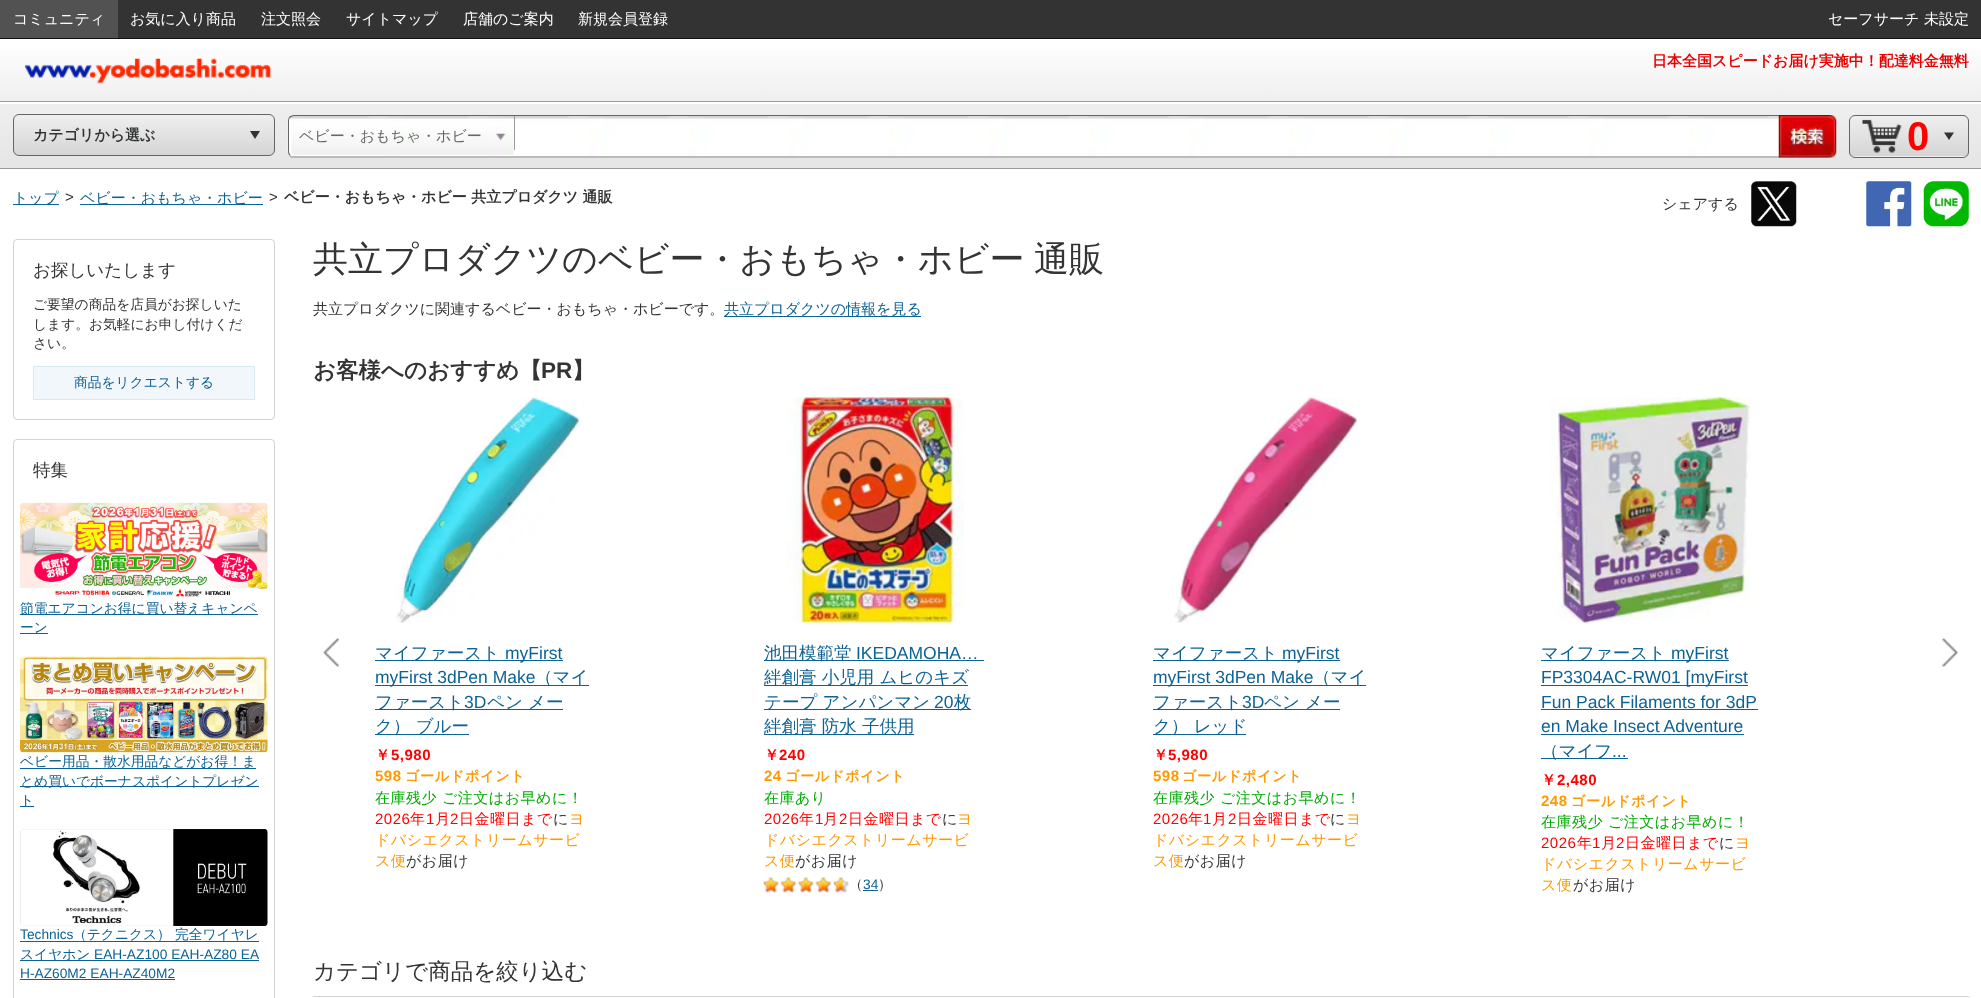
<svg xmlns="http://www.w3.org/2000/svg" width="1981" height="998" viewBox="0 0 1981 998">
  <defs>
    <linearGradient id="g1" gradientUnits="userSpaceOnUse" x1="991" y1="39" x2="991" y2="101"><stop offset="0" stop-color="#fff"/><stop offset="1" stop-color="#efefef"/></linearGradient>
    <linearGradient id="g2" gradientUnits="userSpaceOnUse" x1="991" y1="104" x2="991" y2="168"><stop offset="0" stop-color="#efefef"/><stop offset="1" stop-color="#e5e5e5"/></linearGradient>
    <clipPath id="clip1"><rect x="13" y="114" width="262" height="42" rx="6"/></clipPath>
    <linearGradient id="g3" gradientUnits="userSpaceOnUse" x1="144" y1="115" x2="144" y2="155"><stop offset="0" stop-color="#efefef"/><stop offset="1" stop-color="#d5d5d5"/></linearGradient>
    <clipPath id="clip2"><rect x="1849" y="115" width="120" height="43" rx="6"/></clipPath>
    <linearGradient id="g4" gradientUnits="userSpaceOnUse" x1="1909" y1="116" x2="1909" y2="156"><stop offset="0" stop-color="#efefef"/><stop offset="1" stop-color="#d5d5d5"/></linearGradient>
    <linearGradient id="g5" gradientUnits="userSpaceOnUse" x1="1909" y1="156" x2="1909" y2="196"><stop offset="0" stop-color="#efefef"/><stop offset="1" stop-color="#d5d5d5"/></linearGradient>
  </defs>
  <rect width="100%" height="100%" fill="#fff"/>
  <path d="M118 0h1863v38H118z" fill="#333"/>
  <path d="M0 38h1981v1H0z" fill="#111"/>
  <path d="M0 0h118v38H0z" fill="#525252"/>
  <path d="M0 49h1981v52H0z" fill="url(#g1)"/>
  <path d="M0 101h1981v1H0z" fill="#999"/>
  <image x="25" y="58" width="247" height="26" href="img/1.png"/>
  <path d="M0 104h1981v64H0z" fill="url(#g2)"/>
  <path d="M0 168h1981v1H0z" fill="#999"/>
  <g clip-path="url(#clip1)">
    <path d="M13 115h262v40H13z" fill="url(#g3)"/>
  </g>
  <rect x="13.5" y="114.5" width="261" height="41" rx="5.5" fill="none" stroke="#656565"/>
  <path d="M250 131H260L255 139Z" fill="#333"/>
  <image x="287" y="116" width="1543" height="41" href="img/2.png"/>
  <path d="M294 115C292 115 290 116 289 117L290 118C291 117 292 116 294 116H1829L1830 115Z" fill="#666"/>
  <path d="M1830 158H291L289 156L290 155C291 156 292 156 294 156H1828Z" fill="#bbb"/>
  <path d="M289.5 117C288.5 118 288 119.5 288 121V151C288 153 288.5 154.5 289.5 155.5L290.5 154.5C289.5 154 289 152.5 289 151V121C289 119.5 289.5 118.5 290 117.5Z" fill="#666"/>
  <path d="M514 116h1v34H514z" fill="#999"/>
  <image x="1778" y="115" width="59" height="43" href="img/3.png"/>
  <image x="291" y="119" width="223" height="36" href="img/4.png"/>
  <image x="496" y="133" width="10" height="8" href="img/5.png"/>
  <g clip-path="url(#clip2)">
    <path d="M1849 116h120v40H1849z" fill="url(#g4)"/>
    <path d="M1849 156h120v2H1849z" fill="url(#g5)"/>
  </g>
  <rect x="1849.5" y="115.5" width="119" height="42" rx="5.5" fill="none" stroke="#656565"/>
  <image x="1862" y="119" width="40" height="34" href="img/6.png"/>
  <path d="M1944 132.5H1954L1949 140Z" fill="#333"/>
  <image x="1751" y="181" width="46" height="46" href="img/7.png"/>
  <image x="1866" y="181" width="46" height="46" href="img/8.png"/>
  <image x="1923" y="181" width="46" height="46" href="img/9.png"/>
  <path d="M13 204h46v1H13z" fill="#0d6295"/>
  <path d="M80 204h183v1H80z" fill="#0d6295"/>
  <rect x="13.5" y="239.5" width="261" height="180" rx="3.5" fill="none" stroke="#d3d4d5"/>
  <path d="M33.5 366.5h221v33H33.5z" fill="#f2f7fb" stroke="#d7e9f1"/>
  <rect x="13.5" y="439.5" width="261" height="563" rx="3.5" fill="none" stroke="#d3d4d5"/>
  <image x="20" y="502" width="248" height="96" href="img/10.png"/>
  <path d="M20 614h238v1H20z" fill="#0d6295"/>
  <path d="M20 633h28v1H20z" fill="#0d6295"/>
  <image x="20" y="656" width="248" height="97" href="img/11.png"/>
  <path d="M20 768h236v1H20z" fill="#0d6295"/>
  <path d="M20 786h239v1H20z" fill="#0d6295"/>
  <path d="M20 806h14v1H20z" fill="#0d6295"/>
  <image x="20" y="829" width="248" height="97" href="img/12.png"/>
  <path d="M20 941h239v1H20z" fill="#0d6295"/>
  <path d="M20 960h239v1H20z" fill="#0d6295"/>
  <path d="M20 979h155v1H20z" fill="#0d6295"/>
  <path d="M724 316h197v1H724z" fill="#0d6295"/>
  <image x="323" y="637" width="16" height="31" href="img/13.png"/>
  <image x="395" y="397" width="190" height="226" href="img/14.png"/>
  <path d="M375 660h188v1H375z" fill="#0d6295"/>
  <path d="M375 685h214v1H375z" fill="#0d6295"/>
  <path d="M375 709h188v1H375z" fill="#0d6295"/>
  <path d="M375 734h94v1H375z" fill="#0d6295"/>
  <image x="786" y="397" width="178" height="227" href="img/15.png"/>
  <path d="M764 660h220v1H764z" fill="#0d6295"/>
  <path d="M764 685h204v1H764z" fill="#0d6295"/>
  <path d="M764 709h207v1H764z" fill="#0d6295"/>
  <path d="M764 734h150v1H764z" fill="#0d6295"/>
  <image x="763" y="877" width="86" height="17" href="img/16.png"/>
  <path d="M863 890h15v1H863z" fill="#0d6295"/>
  <image x="1174" y="397" width="184" height="226" href="img/17.png"/>
  <path d="M1153 660h187v1H1153z" fill="#0d6295"/>
  <path d="M1153 685h213v1H1153z" fill="#0d6295"/>
  <path d="M1153 709h187v1H1153z" fill="#0d6295"/>
  <path d="M1153 734h93v1H1153z" fill="#0d6295"/>
  <image x="1550" y="397" width="201" height="227" href="img/18.png"/>
  <path d="M1541 660h188v1H1541z" fill="#0d6295"/>
  <path d="M1541 685h207v1H1541z" fill="#0d6295"/>
  <path d="M1541 709h217v1H1541z" fill="#0d6295"/>
  <path d="M1541 734h203v1H1541z" fill="#0d6295"/>
  <path d="M1541 758h87v1H1541z" fill="#0d6295"/>
  <image x="1942" y="637" width="16" height="31" href="img/19.png"/>
  <path d="M313 996h1656v1H313z" fill="#d3d4d5"/>
  <g font-family="WenQuanYi Zen Hei" font-size="15" font-weight="500" fill="#fff">
    <text x="13" y="24">コミュニティ</text>
    <text x="130" y="24">お気に入り商品</text>
    <text x="261" y="24">注文照会</text>
    <text x="346" y="24">サイトマップ</text>
    <text x="463" y="24">店舗のご案内</text>
    <text x="578" y="24">新規会員登録</text>
    <text x="1828" y="24">セーフサーチ 未設定</text>
  </g>
  <text x="1652" y="66" font-family="WenQuanYi Zen Hei" font-size="15" font-weight="bold" fill="#e60000">日本全国スピードお届け実施中！配達料金無料</text>
  <text x="33" y="140" font-family="WenQuanYi Zen Hei" font-size="15" font-weight="bold" fill="#333435">カテゴリから選ぶ</text>
  <text x="299" y="141" font-family="WenQuanYi Zen Hei" font-size="15" font-weight="500" fill="#666">ベビー・おもちゃ・ホビー</text>
  <text x="1907" y="150" font-family="Liberation Sans" font-size="40" font-weight="bold" fill="#f00">0</text>
  <text x="1662" y="209" font-family="WenQuanYi Zen Hei" font-size="15" font-weight="500" fill="#333435">シェアする</text>
  <text x="13" y="203" font-family="WenQuanYi Zen Hei" font-size="15" font-weight="500" fill="#0d6295">トップ</text>
  <text x="65" y="202" font-family="Liberation Sans" font-size="15" fill="#333435">&gt;</text>
  <text x="80" y="203" font-family="WenQuanYi Zen Hei" font-size="15" font-weight="500" fill="#0d6295">ベビー・おもちゃ・ホビー</text>
  <text x="269" y="202" font-family="Liberation Sans" font-size="15" fill="#333435">&gt;</text>
  <text x="284" y="202" font-family="WenQuanYi Zen Hei" font-size="15" font-weight="bold" fill="#333435">ベビー・おもちゃ・ホビー 共立プロダクツ 通販</text>
  <text x="33" y="276" font-family="WenQuanYi Zen Hei" font-size="17.5" font-weight="500" fill="#333435">お探しいたします</text>
  <g font-family="WenQuanYi Zen Hei" font-size="13.75" font-weight="500" fill="#333435">
    <text x="33" y="309">ご要望の商品を店員がお探しいた</text>
    <text x="33" y="329">します。お気軽にお申し付けくだ</text>
    <text x="33" y="348">さい。</text>
  </g>
  <text x="74" y="387" font-family="WenQuanYi Zen Hei" font-size="13.75" font-weight="500" fill="#0d6295">商品をリクエストする</text>
  <text x="33" y="476" font-family="WenQuanYi Zen Hei" font-size="17.5" font-weight="500" fill="#333435">特集</text>
  <g font-family="WenQuanYi Zen Hei" font-size="13.75" font-weight="500" fill="#0d6295">
    <text x="20" y="613">節電エアコンお得に買い替えキャンペ</text>
    <text x="20" y="632">ーン</text>
    <text x="20" y="766">ベビー用品・散水用品などがお得！ま</text>
    <text x="20" y="786">とめ買いでボーナスポイントプレゼン</text>
    <text x="20" y="805">ト</text>
  </g>
  <text x="20" y="939" font-family="Liberation Sans" font-size="13.75" fill="#0d6295">Technics</text>
  <g font-family="WenQuanYi Zen Hei" font-size="13.75" font-weight="500" fill="#0d6295">
    <text x="73" y="939">（テクニクス） 完全ワイヤレ</text>
    <text x="20" y="959">スイヤホン</text>
  </g>
  <g font-family="Liberation Sans" font-size="13.75" fill="#0d6295">
    <text x="94" y="959">EAH-AZ100 EAH-AZ80 EA</text>
    <text x="20" y="978">H-AZ60M2 EAH-AZ40M2</text>
  </g>
  <text x="313" y="271" word-spacing="-1" font-family="WenQuanYi Zen Hei" font-size="35" font-weight="500" fill="#333435">共立プロダクツのベビー・おもちゃ・ホビー 通販</text>
  <text x="313" y="314" font-family="WenQuanYi Zen Hei" font-size="15" font-weight="500" fill="#333435">共立プロダクツに関連するベビー・おもちゃ・ホビーです。</text>
  <text x="724" y="314" font-family="WenQuanYi Zen Hei" font-size="15" font-weight="500" fill="#0d6295">共立プロダクツの情報を見る</text>
  <text x="313" y="378" font-family="WenQuanYi Zen Hei" font-size="22.5" font-weight="bold" fill="#333435">お客様へのおすすめ【</text>
  <text x="541" y="378" font-family="Liberation Sans" font-size="22.5" font-weight="bold" fill="#333435">PR</text>
  <text x="572" y="378" font-family="WenQuanYi Zen Hei" font-size="22.5" font-weight="bold" fill="#333435">】</text>
  <text x="375" y="659" font-family="WenQuanYi Zen Hei" font-size="17.5" font-weight="500" fill="#0d6295">マイファースト</text>
  <g font-family="Liberation Sans" font-size="17.5" fill="#0d6295">
    <text x="505" y="659">myFirst</text>
    <text x="375" y="683">myFirst 3dPen Make</text>
  </g>
  <g font-family="WenQuanYi Zen Hei" font-size="17.5" font-weight="500" fill="#0d6295">
    <text x="535" y="683">（マイ</text>
    <text x="375" y="708">ファースト</text>
  </g>
  <text x="464" y="708" font-family="Liberation Sans" font-size="17.5" fill="#0d6295">3D</text>
  <g font-family="WenQuanYi Zen Hei" font-size="17.5" font-weight="500" fill="#0d6295">
    <text x="487" y="708">ペン メー</text>
    <text x="375" y="732">ク） ブルー</text>
  </g>
  <text x="375" y="760" font-family="WenQuanYi Zen Hei" font-size="15" font-weight="bold" letter-spacing="0.5" fill="#f00">￥</text>
  <text x="391" y="760" font-family="Liberation Sans" font-size="15" font-weight="bold" letter-spacing="0.5" fill="#f00">5,980</text>
  <text x="375" y="781" font-family="Liberation Sans" font-size="15" font-weight="bold" letter-spacing="0.5" fill="#f90">598</text>
  <text x="405" y="781" font-family="WenQuanYi Zen Hei" font-size="14.25" font-weight="bold" letter-spacing="0.5" fill="#f90">ゴールドポイント</text>
  <text x="375" y="803" font-family="WenQuanYi Zen Hei" font-size="15" font-weight="500" letter-spacing="0.5" fill="#0a0">在庫残少 ご注文はお早めに！</text>
  <text x="375" y="824" font-family="Liberation Sans" font-size="15" letter-spacing="0.5" fill="#f00">2026</text>
  <text x="410" y="824" font-family="WenQuanYi Zen Hei" font-size="15" font-weight="500" letter-spacing="0.5" fill="#f00">年</text>
  <text x="426" y="824" font-family="Liberation Sans" font-size="15" letter-spacing="0.5" fill="#f00">1</text>
  <text x="435" y="824" font-family="WenQuanYi Zen Hei" font-size="15" font-weight="500" letter-spacing="0.5" fill="#f00">月</text>
  <text x="450" y="824" font-family="Liberation Sans" font-size="15" letter-spacing="0.5" fill="#f00">2</text>
  <text x="459" y="824" font-family="WenQuanYi Zen Hei" font-size="15" font-weight="500" letter-spacing="0.5" fill="#f00">日金曜日まで</text>
  <text x="553" y="824" font-family="WenQuanYi Zen Hei" font-size="15" font-weight="500" letter-spacing="0.5" fill="#333435">に</text>
  <g font-family="WenQuanYi Zen Hei" font-size="15" font-weight="500" letter-spacing="0.5" fill="#f90">
    <text x="569" y="824">ヨ</text>
    <text x="375" y="845">ドバシエクストリームサービ</text>
    <text x="375" y="866">ス便</text>
  </g>
  <text x="406" y="866" font-family="WenQuanYi Zen Hei" font-size="15" font-weight="500" letter-spacing="0.5" fill="#333435">がお届け</text>
  <text x="764" y="659" font-family="WenQuanYi Zen Hei" font-size="17.5" font-weight="500" fill="#0d6295">池田模範堂</text>
  <text x="856" y="659" font-family="Liberation Sans" font-size="17.5" fill="#0d6295">IKEDAMOHA…</text>
  <g font-family="WenQuanYi Zen Hei" font-size="17.5" font-weight="500" fill="#0d6295">
    <text x="764" y="683">絆創膏 小児用 ムヒのキズ</text>
    <text x="764" y="708">テープ アンパンマン</text>
  </g>
  <text x="934" y="708" font-family="Liberation Sans" font-size="17.5" fill="#0d6295">20</text>
  <g font-family="WenQuanYi Zen Hei" font-size="17.5" font-weight="500" fill="#0d6295">
    <text x="954" y="708">枚</text>
    <text x="764" y="732">絆創膏 防水 子供用</text>
  </g>
  <text x="764" y="760" font-family="WenQuanYi Zen Hei" font-size="15" font-weight="bold" letter-spacing="0.5" fill="#f00">￥</text>
  <text x="779" y="760" font-family="Liberation Sans" font-size="15" font-weight="bold" letter-spacing="0.5" fill="#f00">240</text>
  <text x="764" y="781" font-family="Liberation Sans" font-size="15" font-weight="bold" letter-spacing="0.5" fill="#f90">24</text>
  <text x="785" y="781" font-family="WenQuanYi Zen Hei" font-size="14.25" font-weight="bold" letter-spacing="0.5" fill="#f90">ゴールドポイント</text>
  <text x="764" y="803" font-family="WenQuanYi Zen Hei" font-size="15" font-weight="500" letter-spacing="0.5" fill="#0a0">在庫あり</text>
  <text x="764" y="824" font-family="Liberation Sans" font-size="15" letter-spacing="0.5" fill="#f00">2026</text>
  <text x="799" y="824" font-family="WenQuanYi Zen Hei" font-size="15" font-weight="500" letter-spacing="0.5" fill="#f00">年</text>
  <text x="815" y="824" font-family="Liberation Sans" font-size="15" letter-spacing="0.5" fill="#f00">1</text>
  <text x="823" y="824" font-family="WenQuanYi Zen Hei" font-size="15" font-weight="500" letter-spacing="0.5" fill="#f00">月</text>
  <text x="839" y="824" font-family="Liberation Sans" font-size="15" letter-spacing="0.5" fill="#f00">2</text>
  <text x="848" y="824" font-family="WenQuanYi Zen Hei" font-size="15" font-weight="500" letter-spacing="0.5" fill="#f00">日金曜日まで</text>
  <text x="942" y="824" font-family="WenQuanYi Zen Hei" font-size="15" font-weight="500" letter-spacing="0.5" fill="#333435">に</text>
  <g font-family="WenQuanYi Zen Hei" font-size="15" font-weight="500" letter-spacing="0.5" fill="#f90">
    <text x="957" y="824">ヨ</text>
    <text x="764" y="845">ドバシエクストリームサービ</text>
    <text x="764" y="866">ス便</text>
  </g>
  <text x="795" y="866" font-family="WenQuanYi Zen Hei" font-size="15" font-weight="500" letter-spacing="0.5" fill="#333435">がお届け</text>
  <text x="849" y="889" font-family="WenQuanYi Zen Hei" font-size="13.75" font-weight="500" fill="#333435">（</text>
  <text x="863" y="889" font-family="Liberation Sans" font-size="13.75" fill="#0d6295">34</text>
  <text x="878" y="889" font-family="WenQuanYi Zen Hei" font-size="13.75" font-weight="500" fill="#333435">）</text>
  <text x="1153" y="659" font-family="WenQuanYi Zen Hei" font-size="17.5" font-weight="500" fill="#0d6295">マイファースト</text>
  <g font-family="Liberation Sans" font-size="17.5" fill="#0d6295">
    <text x="1282" y="659">myFirst</text>
    <text x="1153" y="683">myFirst 3dPen Make</text>
  </g>
  <g font-family="WenQuanYi Zen Hei" font-size="17.5" font-weight="500" fill="#0d6295">
    <text x="1313" y="683">（マイ</text>
    <text x="1153" y="708">ファースト</text>
  </g>
  <text x="1242" y="708" font-family="Liberation Sans" font-size="17.5" fill="#0d6295">3D</text>
  <g font-family="WenQuanYi Zen Hei" font-size="17.5" font-weight="500" fill="#0d6295">
    <text x="1264" y="708">ペン メー</text>
    <text x="1153" y="732">ク） レッド</text>
  </g>
  <text x="1153" y="760" font-family="WenQuanYi Zen Hei" font-size="15" font-weight="bold" letter-spacing="0.5" fill="#f00">￥</text>
  <text x="1168" y="760" font-family="Liberation Sans" font-size="15" font-weight="bold" letter-spacing="0.5" fill="#f00">5,980</text>
  <text x="1153" y="781" font-family="Liberation Sans" font-size="15" font-weight="bold" letter-spacing="0.5" fill="#f90">598</text>
  <text x="1182" y="781" font-family="WenQuanYi Zen Hei" font-size="14.25" font-weight="bold" letter-spacing="0.5" fill="#f90">ゴールドポイント</text>
  <text x="1153" y="803" font-family="WenQuanYi Zen Hei" font-size="15" font-weight="500" letter-spacing="0.5" fill="#0a0">在庫残少 ご注文はお早めに！</text>
  <text x="1153" y="824" font-family="Liberation Sans" font-size="15" letter-spacing="0.5" fill="#f00">2026</text>
  <text x="1188" y="824" font-family="WenQuanYi Zen Hei" font-size="15" font-weight="500" letter-spacing="0.5" fill="#f00">年</text>
  <text x="1203" y="824" font-family="Liberation Sans" font-size="15" letter-spacing="0.5" fill="#f00">1</text>
  <text x="1212" y="824" font-family="WenQuanYi Zen Hei" font-size="15" font-weight="500" letter-spacing="0.5" fill="#f00">月</text>
  <text x="1228" y="824" font-family="Liberation Sans" font-size="15" letter-spacing="0.5" fill="#f00">2</text>
  <text x="1237" y="824" font-family="WenQuanYi Zen Hei" font-size="15" font-weight="500" letter-spacing="0.5" fill="#f00">日金曜日まで</text>
  <text x="1330" y="824" font-family="WenQuanYi Zen Hei" font-size="15" font-weight="500" letter-spacing="0.5" fill="#333435">に</text>
  <g font-family="WenQuanYi Zen Hei" font-size="15" font-weight="500" letter-spacing="0.5" fill="#f90">
    <text x="1346" y="824">ヨ</text>
    <text x="1153" y="845">ドバシエクストリームサービ</text>
    <text x="1153" y="866">ス便</text>
  </g>
  <text x="1184" y="866" font-family="WenQuanYi Zen Hei" font-size="15" font-weight="500" letter-spacing="0.5" fill="#333435">がお届け</text>
  <text x="1541" y="659" font-family="WenQuanYi Zen Hei" font-size="17.5" font-weight="500" fill="#0d6295">マイファースト</text>
  <g font-family="Liberation Sans" font-size="17.5" fill="#0d6295">
    <text x="1671" y="659">myFirst</text>
    <text x="1541" y="683">FP3304AC-RW01 [myFirst</text>
    <text x="1541" y="708">Fun Pack Filaments for 3dP</text>
    <text x="1541" y="732">en Make Insect Adventure</text>
  </g>
  <text x="1541" y="757" font-family="WenQuanYi Zen Hei" font-size="17.5" font-weight="500" fill="#0d6295">（マイフ</text>
  <text x="1612" y="757" font-family="Liberation Sans" font-size="17.5" fill="#0d6295">...</text>
  <text x="1541" y="785" font-family="WenQuanYi Zen Hei" font-size="15" font-weight="bold" letter-spacing="0.5" fill="#f00">￥</text>
  <text x="1557" y="785" font-family="Liberation Sans" font-size="15" font-weight="bold" letter-spacing="0.5" fill="#f00">2,480</text>
  <text x="1541" y="806" font-family="Liberation Sans" font-size="15" font-weight="bold" letter-spacing="0.5" fill="#f90">248</text>
  <text x="1571" y="806" font-family="WenQuanYi Zen Hei" font-size="14.25" font-weight="bold" letter-spacing="0.5" fill="#f90">ゴールドポイント</text>
  <text x="1541" y="827" font-family="WenQuanYi Zen Hei" font-size="15" font-weight="500" letter-spacing="0.5" fill="#0a0">在庫残少 ご注文はお早めに！</text>
  <text x="1541" y="848" font-family="Liberation Sans" font-size="15" letter-spacing="0.5" fill="#f00">2026</text>
  <text x="1577" y="848" font-family="WenQuanYi Zen Hei" font-size="15" font-weight="500" letter-spacing="0.5" fill="#f00">年</text>
  <text x="1592" y="848" font-family="Liberation Sans" font-size="15" letter-spacing="0.5" fill="#f00">1</text>
  <text x="1601" y="848" font-family="WenQuanYi Zen Hei" font-size="15" font-weight="500" letter-spacing="0.5" fill="#f00">月</text>
  <text x="1616" y="848" font-family="Liberation Sans" font-size="15" letter-spacing="0.5" fill="#f00">2</text>
  <text x="1625" y="848" font-family="WenQuanYi Zen Hei" font-size="15" font-weight="500" letter-spacing="0.5" fill="#f00">日金曜日まで</text>
  <text x="1719" y="848" font-family="WenQuanYi Zen Hei" font-size="15" font-weight="500" letter-spacing="0.5" fill="#333435">に</text>
  <g font-family="WenQuanYi Zen Hei" font-size="15" font-weight="500" letter-spacing="0.5" fill="#f90">
    <text x="1735" y="848">ヨ</text>
    <text x="1541" y="869">ドバシエクストリームサービ</text>
    <text x="1541" y="890">ス便</text>
  </g>
  <text x="1573" y="890" font-family="WenQuanYi Zen Hei" font-size="15" font-weight="500" letter-spacing="0.5" fill="#333435">がお届け</text>
  <text x="313" y="979" font-family="WenQuanYi Zen Hei" font-size="22.5" font-weight="500" fill="#333435">カテゴリで商品を絞り込む</text>
</svg>
